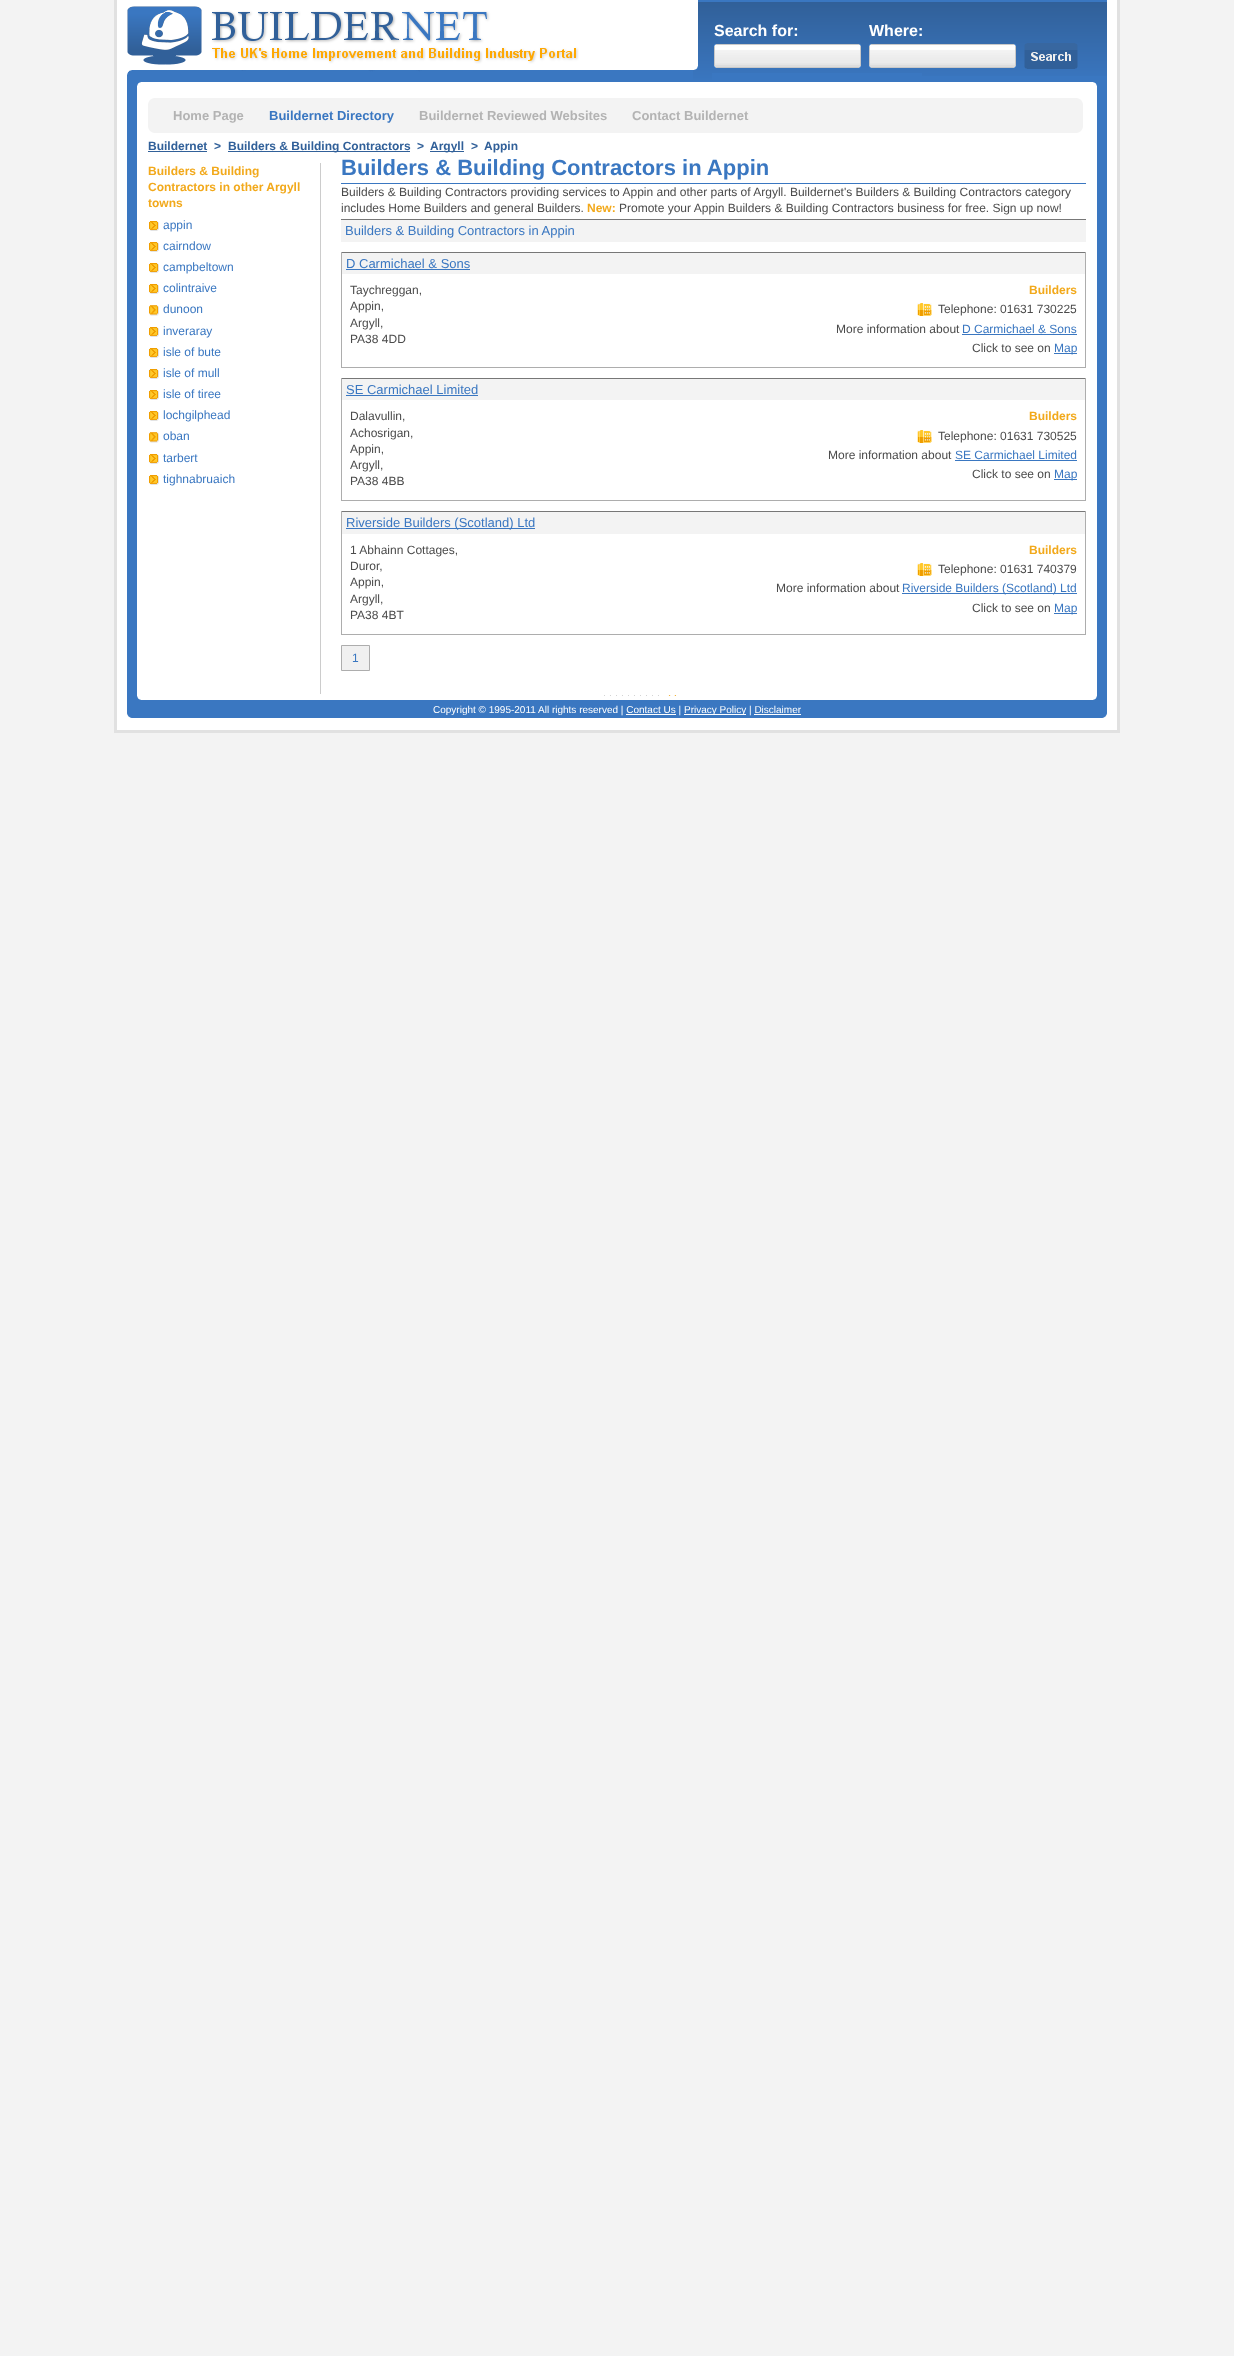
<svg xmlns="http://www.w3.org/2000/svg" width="1234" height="2356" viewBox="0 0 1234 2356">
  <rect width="100%" height="100%" fill="#f3f3f3"/>
  <path d="M117 0h1000v730H117z" fill="#fff"/>
  <path d="M1117 0h3v733H1117z" fill="#e1e1e1"/>
  <path d="M114 730h1006v3H114z" fill="#e1e1e1"/>
  <path d="M114 0h3v733H114z" fill="#e1e1e1"/>
  <image x="127" y="6" width="452" height="59" href="img/1.png"/>
  <image x="694" y="0" width="413" height="70" href="img/2.png"/>
  <image x="714" y="44" width="147" height="24" href="img/3.png"/>
  <image x="869" y="44" width="147" height="24" href="img/3.png"/>
  <image x="1024" y="43" width="54" height="26" href="img/4.png"/>
  <image x="127" y="70" width="980" height="17" href="img/5.png"/>
  <path d="M127 87h980v608H127z" fill="#3a77c1"/>
  <path d="M137 87h960v608H137z" fill="#fff"/>
  <image x="148" y="98" width="935" height="35" href="img/6.png"/>
  <path d="M148 151h59v1H148z" fill="#316099"/>
  <path d="M228 151h182v1H228z" fill="#316099"/>
  <path d="M430 151h34v1H430z" fill="#316099"/>
  <image x="149" y="221" width="10" height="10" href="img/7.png"/>
  <image x="149" y="242" width="10" height="10" href="img/7.png"/>
  <image x="149" y="263" width="10" height="10" href="img/7.png"/>
  <image x="149" y="284" width="10" height="10" href="img/7.png"/>
  <image x="149" y="305" width="10" height="11" href="img/8.png"/>
  <image x="149" y="327" width="10" height="10" href="img/7.png"/>
  <image x="149" y="348" width="10" height="10" href="img/7.png"/>
  <image x="149" y="369" width="10" height="10" href="img/7.png"/>
  <image x="149" y="390" width="10" height="10" href="img/7.png"/>
  <image x="149" y="411" width="10" height="10" href="img/7.png"/>
  <image x="149" y="432" width="10" height="11" href="img/8.png"/>
  <image x="149" y="454" width="10" height="10" href="img/7.png"/>
  <image x="149" y="475" width="10" height="10" href="img/7.png"/>
  <path d="M320 163h1v531H320z" fill="#ccc"/>
  <path d="M341 183h745v1H341z" fill="#3a77c1"/>
  <path d="M341 220h745v22H341z" fill="#f3f3f3"/>
  <path d="M341 219h745v1H341z" fill="#777"/>
  <path d="M1085 252h1v116H1085z" fill="#adadad"/>
  <path d="M341 367h745v1H341z" fill="#adadad"/>
  <path d="M341 252h1v116H341z" fill="#adadad"/>
  <path d="M342 253h743v21H342z" fill="#f3f3f3"/>
  <path d="M342 252h743v1H342z" fill="#777"/>
  <path d="M346 269h124v1H346z" fill="#3a77c1"/>
  <image x="917" y="303" width="15" height="13" href="img/9.png"/>
  <path d="M962 334h115v1H962z" fill="#3a77c1"/>
  <path d="M1054 353h23v1H1054z" fill="#3a77c1"/>
  <path d="M1085 378h1v123H1085z" fill="#adadad"/>
  <path d="M341 500h745v1H341z" fill="#adadad"/>
  <path d="M341 378h1v123H341z" fill="#adadad"/>
  <path d="M342 379h743v21H342z" fill="#f3f3f3"/>
  <path d="M342 378h743v1H342z" fill="#777"/>
  <path d="M346 395h132v1H346z" fill="#3a77c1"/>
  <image x="917" y="430" width="15" height="13" href="img/9.png"/>
  <path d="M955 460h122v1H955z" fill="#3a77c1"/>
  <path d="M1054 479h23v1H1054z" fill="#3a77c1"/>
  <path d="M1085 511h1v124H1085z" fill="#adadad"/>
  <path d="M341 634h745v1H341z" fill="#adadad"/>
  <path d="M341 511h1v124H341z" fill="#adadad"/>
  <path d="M342 512h743v22H342z" fill="#f3f3f3"/>
  <path d="M342 511h743v1H342z" fill="#777"/>
  <path d="M346 528h189v1H346z" fill="#3a77c1"/>
  <image x="917" y="563" width="15" height="13" href="img/9.png"/>
  <path d="M902 593h175v1H902z" fill="#3a77c1"/>
  <path d="M1054 613h23v1H1054z" fill="#3a77c1"/>
  <path d="M341.5 645.5h28v25H341.5z" fill="#f0f0f0" stroke="#adadad"/>
  <image x="127" y="695" width="980" height="25" href="img/10.png"/>
  <path d="M684 714h62v1H684z" fill="#fff"/>
  <path d="M626 714h50v1H626z" fill="#fff"/>
  <path d="M754 714h47v1H754z" fill="#fff"/>
  <g font-family="Liberation Sans" font-size="16" font-weight="bold" fill="#fff">
    <text x="714" y="36">Search for:</text>
    <text x="869" y="36">Where:</text>
  </g>
  <text x="173" y="120" font-family="Liberation Sans" font-size="13" font-weight="bold" fill="#b3b3b3">Home Page</text>
  <text x="269" y="120" font-family="Liberation Sans" font-size="13" font-weight="bold" fill="#3a77c1">Buildernet Directory</text>
  <g font-family="Liberation Sans" font-size="13" font-weight="bold" fill="#b3b3b3">
    <text x="419" y="120">Buildernet Reviewed Websites</text>
    <text x="632" y="120">Contact Buildernet</text>
  </g>
  <g font-family="Liberation Sans" font-size="12" font-weight="bold" fill="#316099">
    <text x="148" y="150">Buildernet</text>
    <text x="214" y="150">&gt;</text>
    <text x="228" y="150">Builders &amp; Building Contractors</text>
    <text x="417" y="150">&gt;</text>
    <text x="430" y="150">Argyll</text>
    <text x="471" y="150">&gt;</text>
    <text x="484" y="150">Appin</text>
  </g>
  <g font-family="Liberation Sans" font-size="12" font-weight="bold" fill="#f2a91b">
    <text x="148" y="175">Builders &amp; Building</text>
    <text x="148" y="191">Contractors in other Argyll</text>
    <text x="148" y="207">towns</text>
  </g>
  <g font-family="Liberation Sans" font-size="12" fill="#3a77c1">
    <text x="163" y="229">appin</text>
    <text x="163" y="250">cairndow</text>
    <text x="163" y="271">campbeltown</text>
    <text x="163" y="292">colintraive</text>
    <text x="163" y="313">dunoon</text>
    <text x="163" y="335">inveraray</text>
    <text x="163" y="356">isle of bute</text>
    <text x="163" y="377">isle of mull</text>
    <text x="163" y="398">isle of tiree</text>
    <text x="163" y="419">lochgilphead</text>
    <text x="163" y="440">oban</text>
    <text x="163" y="462">tarbert</text>
    <text x="163" y="483">tighnabruaich</text>
  </g>
  <text x="341" y="175" font-family="Liberation Sans" font-size="22" font-weight="bold" fill="#3a77c1">Builders &amp; Building Contractors in Appin</text>
  <g font-family="Liberation Sans" font-size="12" fill="#4b4b4b">
    <text x="341" y="196">Builders &amp; Building Contractors providing services to Appin and other parts of Argyll. Buildernet's Builders &amp; Building Contractors category</text>
    <text x="341" y="212">includes Home Builders and general Builders.</text>
  </g>
  <text x="587" y="212" font-family="Liberation Sans" font-size="12" font-weight="bold" fill="#f2a91b">New:</text>
  <text x="619" y="212" font-family="Liberation Sans" font-size="12" fill="#4b4b4b">Promote your Appin Builders &amp; Building Contractors business for free. Sign up now!</text>
  <g font-family="Liberation Sans" font-size="13" fill="#3a77c1">
    <text x="345" y="235">Builders &amp; Building Contractors in Appin</text>
    <text x="346" y="268">D Carmichael &amp; Sons</text>
  </g>
  <g font-family="Liberation Sans" font-size="12" fill="#4b4b4b">
    <text x="350" y="294">Taychreggan,</text>
    <text x="350" y="310">Appin,</text>
    <text x="350" y="327">Argyll,</text>
    <text x="350" y="343">PA38 4DD</text>
  </g>
  <text x="1029" y="294" font-family="Liberation Sans" font-size="12" font-weight="bold" fill="#f2a91b">Builders</text>
  <g font-family="Liberation Sans" font-size="12" fill="#4b4b4b">
    <text x="938" y="313">Telephone: 01631 730225</text>
    <text x="836" y="333">More information about</text>
  </g>
  <text x="962" y="333" font-family="Liberation Sans" font-size="12" fill="#3a77c1">D Carmichael &amp; Sons</text>
  <text x="972" y="352" font-family="Liberation Sans" font-size="12" fill="#4b4b4b">Click to see on</text>
  <text x="1054" y="352" font-family="Liberation Sans" font-size="12" fill="#3a77c1">Map</text>
  <text x="346" y="394" font-family="Liberation Sans" font-size="13" fill="#3a77c1">SE Carmichael Limited</text>
  <g font-family="Liberation Sans" font-size="12" fill="#4b4b4b">
    <text x="350" y="420">Dalavullin,</text>
    <text x="350" y="437">Achosrigan,</text>
    <text x="350" y="453">Appin,</text>
    <text x="350" y="469">Argyll,</text>
    <text x="350" y="485">PA38 4BB</text>
  </g>
  <text x="1029" y="420" font-family="Liberation Sans" font-size="12" font-weight="bold" fill="#f2a91b">Builders</text>
  <g font-family="Liberation Sans" font-size="12" fill="#4b4b4b">
    <text x="938" y="440">Telephone: 01631 730525</text>
    <text x="828" y="459">More information about</text>
  </g>
  <text x="955" y="459" font-family="Liberation Sans" font-size="12" fill="#3a77c1">SE Carmichael Limited</text>
  <text x="972" y="478" font-family="Liberation Sans" font-size="12" fill="#4b4b4b">Click to see on</text>
  <text x="1054" y="478" font-family="Liberation Sans" font-size="12" fill="#3a77c1">Map</text>
  <text x="346" y="527" font-family="Liberation Sans" font-size="13" fill="#3a77c1">Riverside Builders (Scotland) Ltd</text>
  <g font-family="Liberation Sans" font-size="12" fill="#4b4b4b">
    <text x="350" y="554">1 Abhainn Cottages,</text>
    <text x="350" y="570">Duror,</text>
    <text x="350" y="586">Appin,</text>
    <text x="350" y="603">Argyll,</text>
    <text x="350" y="619">PA38 4BT</text>
  </g>
  <text x="1029" y="554" font-family="Liberation Sans" font-size="12" font-weight="bold" fill="#f2a91b">Builders</text>
  <g font-family="Liberation Sans" font-size="12" fill="#4b4b4b">
    <text x="938" y="573">Telephone: 01631 740379</text>
    <text x="776" y="592">More information about</text>
  </g>
  <text x="902" y="592" font-family="Liberation Sans" font-size="12" fill="#3a77c1">Riverside Builders (Scotland) Ltd</text>
  <text x="972" y="612" font-family="Liberation Sans" font-size="12" fill="#4b4b4b">Click to see on</text>
  <g font-family="Liberation Sans" font-size="12" fill="#3a77c1">
    <text x="1054" y="612">Map</text>
    <text x="352" y="662">1</text>
  </g>
  <g font-family="Liberation Sans" font-size="10" fill="#fff">
    <text x="433" y="713">Copyright © 1995-2011 All rights reserved | Contact Us |</text>
    <text x="684" y="713">Privacy Policy | Disclaimer</text>
  </g>
</svg>
